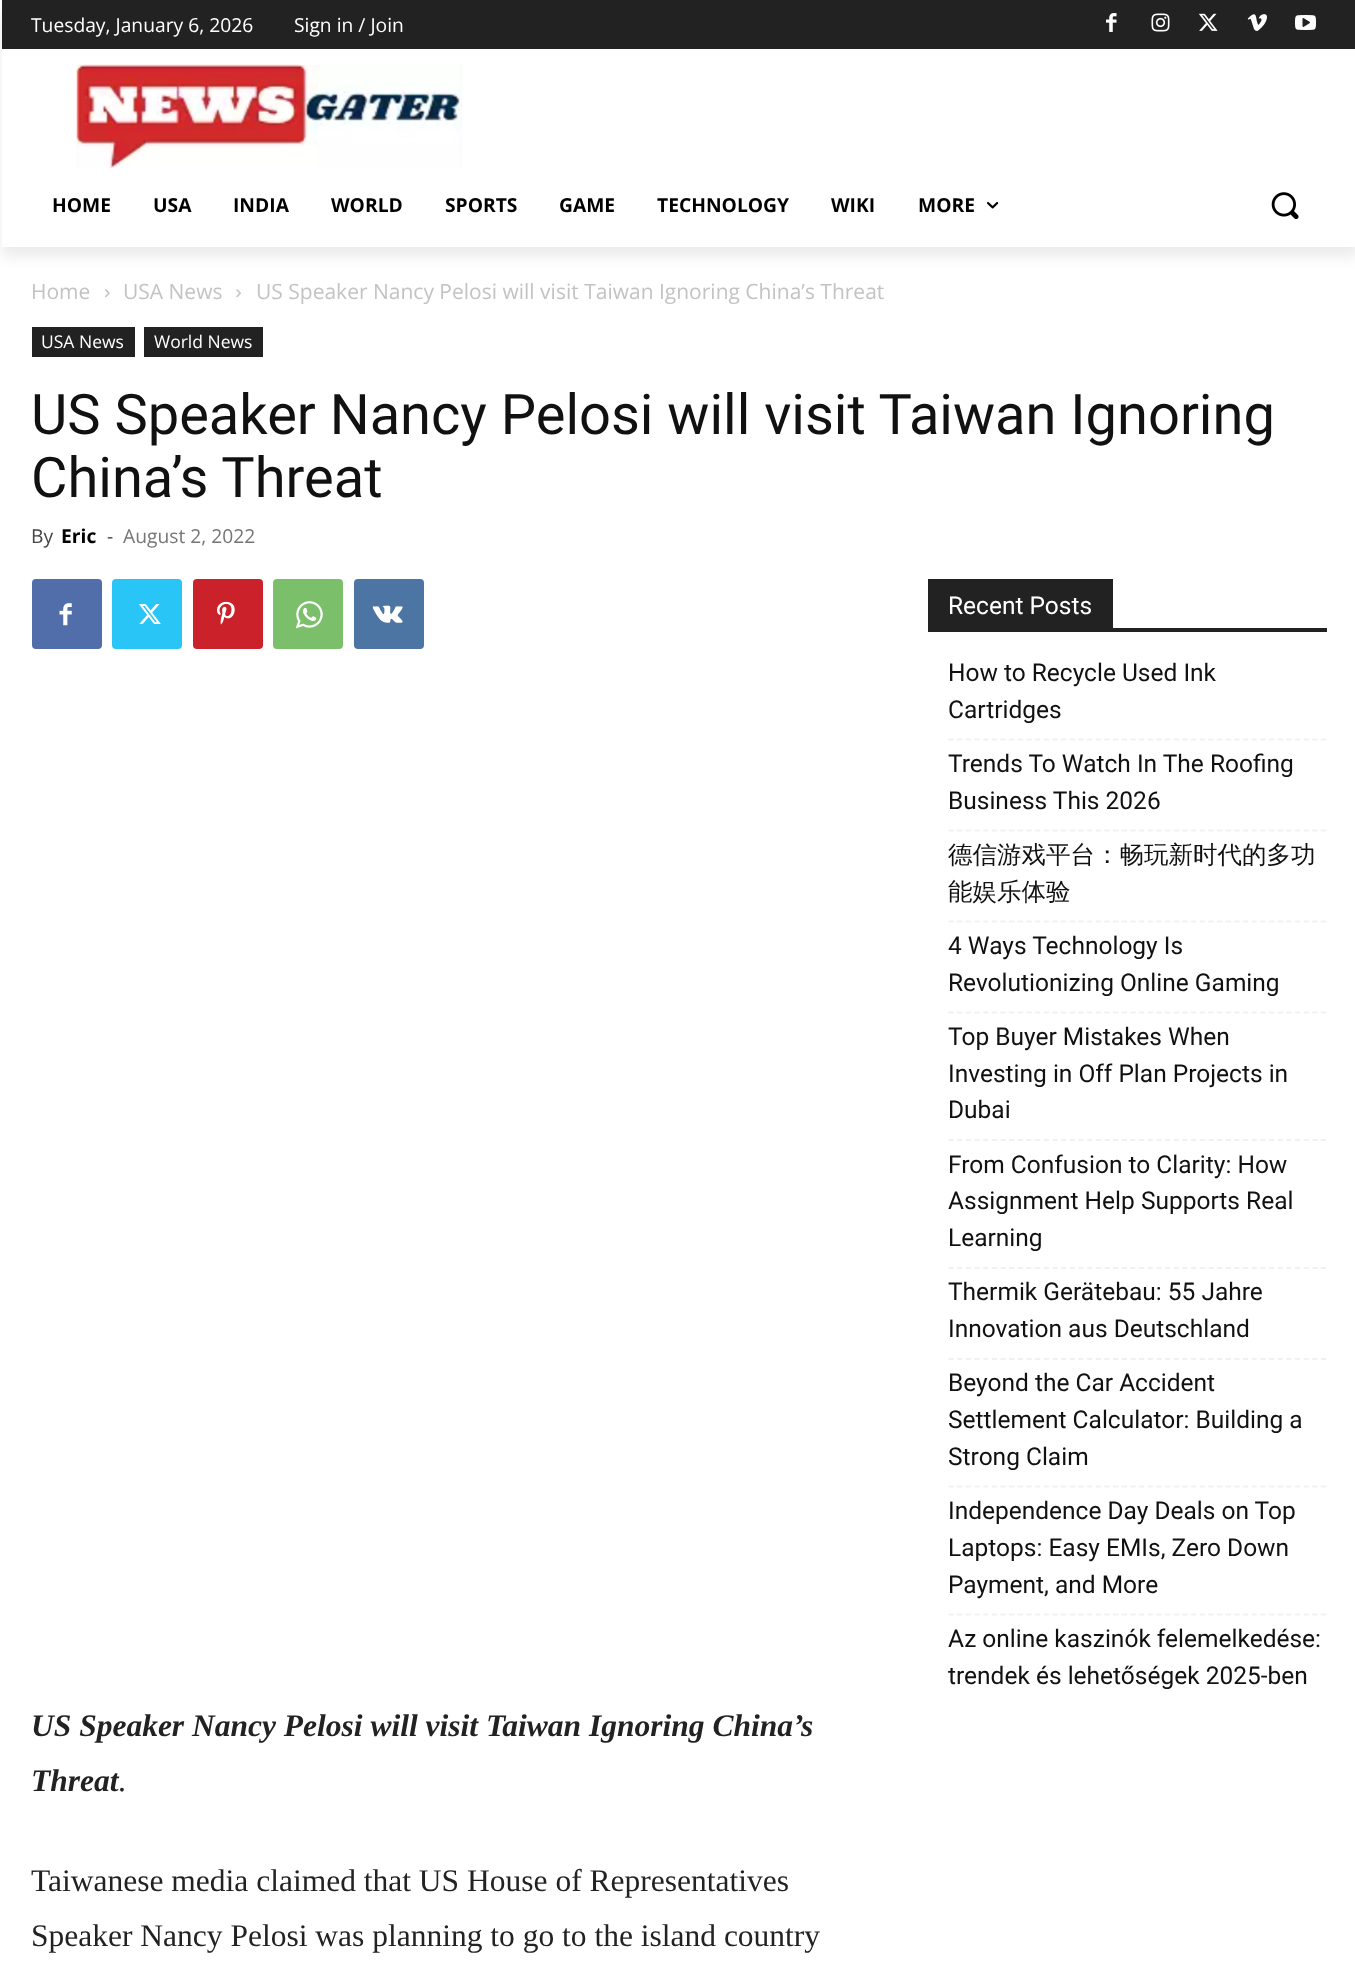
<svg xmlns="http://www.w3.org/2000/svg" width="1355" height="1976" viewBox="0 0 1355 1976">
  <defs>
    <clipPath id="clip1"><path d="M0 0H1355V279H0ZM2 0H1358V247H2Z" clip-rule="evenodd"/></clipPath>
  </defs>
  <rect width="100%" height="100%" fill="#fff"/>
  <path d="M2 0h1353v49H2z" fill="#222"/>
  <image x="1106" y="13" width="11" height="19" href="img/1.png"/>
  <image x="1151" y="13" width="19" height="19" href="img/2.png"/>
  <image x="1198" y="13" width="20" height="18" href="img/3.png"/>
  <image x="1247" y="14" width="20" height="17" href="img/4.png"/>
  <image x="1295" y="15" width="21" height="15" href="img/5.png"/>
  <image x="76" y="64" width="386" height="105" href="img/6.png"/>
  <g clip-path="url(#clip1)">
    <path d="M2 11h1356v246H2z" fill="#00000014" filter="blur(7px)"/>
  </g>
  <image x="987" y="201" width="12" height="8" href="img/7.png"/>
  <image x="1271" y="192" width="28" height="28" href="img/8.png"/>
  <image x="105" y="289" width="5" height="9" href="img/9.png"/>
  <image x="236" y="289" width="5" height="9" href="img/10.png"/>
  <path d="M32 327h103v30H32z" fill="#222"/>
  <path d="M144 327h119v30H144z" fill="#222"/>
  <path d="M928 628h399v4H928z" fill="#222"/>
  <path d="M928 579h185v49H928z" fill="#222"/>
  <path d="M948.5 739.5H1326.5" fill="none" stroke="#f1f1f1" stroke-width="1.8" stroke-dasharray="5.25 3.41"/>
  <path d="M948.5 830.5H1326.5" fill="none" stroke="#f1f1f1" stroke-width="1.8" stroke-dasharray="5.25 3.41"/>
  <path d="M948.5 921.5H1326.5" fill="none" stroke="#f1f1f1" stroke-width="1.8" stroke-dasharray="5.25 3.41"/>
  <path d="M948.5 1012.5H1326.5" fill="none" stroke="#f1f1f1" stroke-width="1.8" stroke-dasharray="5.25 3.41"/>
  <path d="M948.5 1140H1326.5" fill="none" stroke="#f1f1f1" stroke-width="1.8" stroke-dasharray="5.25 3.41"/>
  <path d="M948.5 1268H1326.5" fill="none" stroke="#f1f1f1" stroke-width="1.8" stroke-dasharray="5.25 3.41"/>
  <path d="M948.5 1359H1326.5" fill="none" stroke="#f1f1f1" stroke-width="1.8" stroke-dasharray="5.25 3.41"/>
  <path d="M948.5 1486.5H1326.5" fill="none" stroke="#f1f1f1" stroke-width="1.8" stroke-dasharray="5.25 3.41"/>
  <path d="M948.5 1614.5H1326.5" fill="none" stroke="#f1f1f1" stroke-width="1.8" stroke-dasharray="5.25 3.41"/>
  <rect x="32" y="579" width="70" height="70" rx="4" fill="#516eab"/>
  <image x="59" y="603" width="13" height="23" href="img/11.png"/>
  <rect x="112" y="579" width="70" height="70" rx="4" fill="#29c5f6"/>
  <image x="138" y="604" width="23" height="20" href="img/12.png"/>
  <rect x="193" y="579" width="70" height="70" rx="4" fill="#ca212a"/>
  <image x="217" y="601" width="18" height="24" href="img/13.png"/>
  <rect x="273" y="579" width="70" height="70" rx="4" fill="#7bbf6a"/>
  <image x="295" y="601" width="28" height="28" href="img/14.png"/>
  <rect x="354" y="579" width="70" height="70" rx="4" fill="#4c75a3"/>
  <image x="372" y="605" width="31" height="18" href="img/15.png"/>
  <g font-family="Open Sans" font-size="19.25" fill="#fff">
    <text x="31" y="32">Tuesday, January 6, 2026</text>
    <text x="294" y="32">Sign in / Join</text>
  </g>
  <g font-family="Open Sans" font-size="19.25" font-weight="bold" fill="#000">
    <text x="52" y="212">HOME</text>
    <text x="153" y="212">USA</text>
    <text x="233" y="212">INDIA</text>
    <text x="331" y="212">WORLD</text>
    <text x="445" y="212">SPORTS</text>
    <text x="559" y="212">GAME</text>
    <text x="657" y="212">TECHNOLOGY</text>
    <text x="831" y="212">WIKI</text>
    <text x="918" y="212">MORE</text>
  </g>
  <g font-family="Open Sans" font-size="21" fill="#c3c3c3">
    <text x="31" y="299">Home</text>
    <text x="123" y="299">USA News</text>
    <text x="256" y="299">US Speaker Nancy Pelosi will visit Taiwan Ignoring China’s Threat</text>
  </g>
  <g font-family="Open Sans" font-size="17.5" fill="#fff">
    <text x="41" y="348">USA News</text>
    <text x="154" y="348">World News</text>
  </g>
  <g font-family="Roboto" font-size="56" fill="#111">
    <text x="31" y="434">US Speaker Nancy Pelosi will visit Taiwan Ignoring</text>
    <text x="31" y="497">China’s Threat</text>
  </g>
  <text x="31" y="543" font-family="Open Sans" font-size="19.25" fill="#444">By</text>
  <text x="61" y="543" font-family="Open Sans" font-size="19.25" font-weight="bold" fill="#000">Eric</text>
  <text x="107" y="543" font-family="Open Sans" font-size="19.25" fill="#444">-</text>
  <text x="123" y="543" font-family="Open Sans" font-size="19.25" fill="#767676">August 2, 2022</text>
  <text x="948" y="614" font-family="Roboto" font-size="24.5" fill="#fff">Recent Posts</text>
  <g font-family="Roboto" font-size="24.5" fill="#111">
    <text x="948" y="681">How to Recycle Used Ink</text>
    <text x="948" y="718">Cartridges</text>
    <text x="948" y="772">Trends To Watch In The Roofing</text>
    <text x="948" y="809">Business This 2026</text>
  </g>
  <g font-family="WenQuanYi Zen Hei" font-size="24.5" font-weight="500" fill="#111">
    <text x="948" y="863">德信游戏平台：畅玩新时代的多功</text>
    <text x="948" y="900">能娱乐体验</text>
  </g>
  <g font-family="Roboto" font-size="24.5" fill="#111">
    <text x="948" y="954">4 Ways Technology Is</text>
    <text x="948" y="991">Revolutionizing Online Gaming</text>
    <text x="948" y="1045">Top Buyer Mistakes When</text>
    <text x="948" y="1082">Investing in Off Plan Projects in</text>
    <text x="948" y="1118">Dubai</text>
    <text x="948" y="1173">From Confusion to Clarity: How</text>
    <text x="948" y="1209">Assignment Help Supports Real</text>
    <text x="948" y="1246">Learning</text>
    <text x="948" y="1300">Thermik Gerätebau: 55 Jahre</text>
    <text x="948" y="1337">Innovation aus Deutschland</text>
    <text x="948" y="1391">Beyond the Car Accident</text>
    <text x="948" y="1428">Settlement Calculator: Building a</text>
    <text x="948" y="1465">Strong Claim</text>
    <text x="948" y="1519">Independence Day Deals on Top</text>
    <text x="948" y="1556">Laptops: Easy EMIs, Zero Down</text>
    <text x="948" y="1593">Payment, and More</text>
    <text x="948" y="1647">Az online kaszinók felemelkedése:</text>
    <text x="948" y="1684">trendek és lehetőségek 2025-ben</text>
  </g>
  <g font-family="Liberation Serif" font-size="31.5" font-weight="bold" font-style="italic" fill="#222">
    <text x="31" y="1736">US Speaker Nancy Pelosi will visit Taiwan Ignoring China’s</text>
    <text x="31" y="1791">Threat</text>
  </g>
  <g font-family="Liberation Serif" font-size="31.5" fill="#222">
    <text x="118" y="1791">.</text>
    <text x="31" y="1891">Taiwanese media claimed that US House of Representatives</text>
    <text x="31" y="1946">Speaker Nancy Pelosi was planning to go to the island country</text>
  </g>
</svg>
